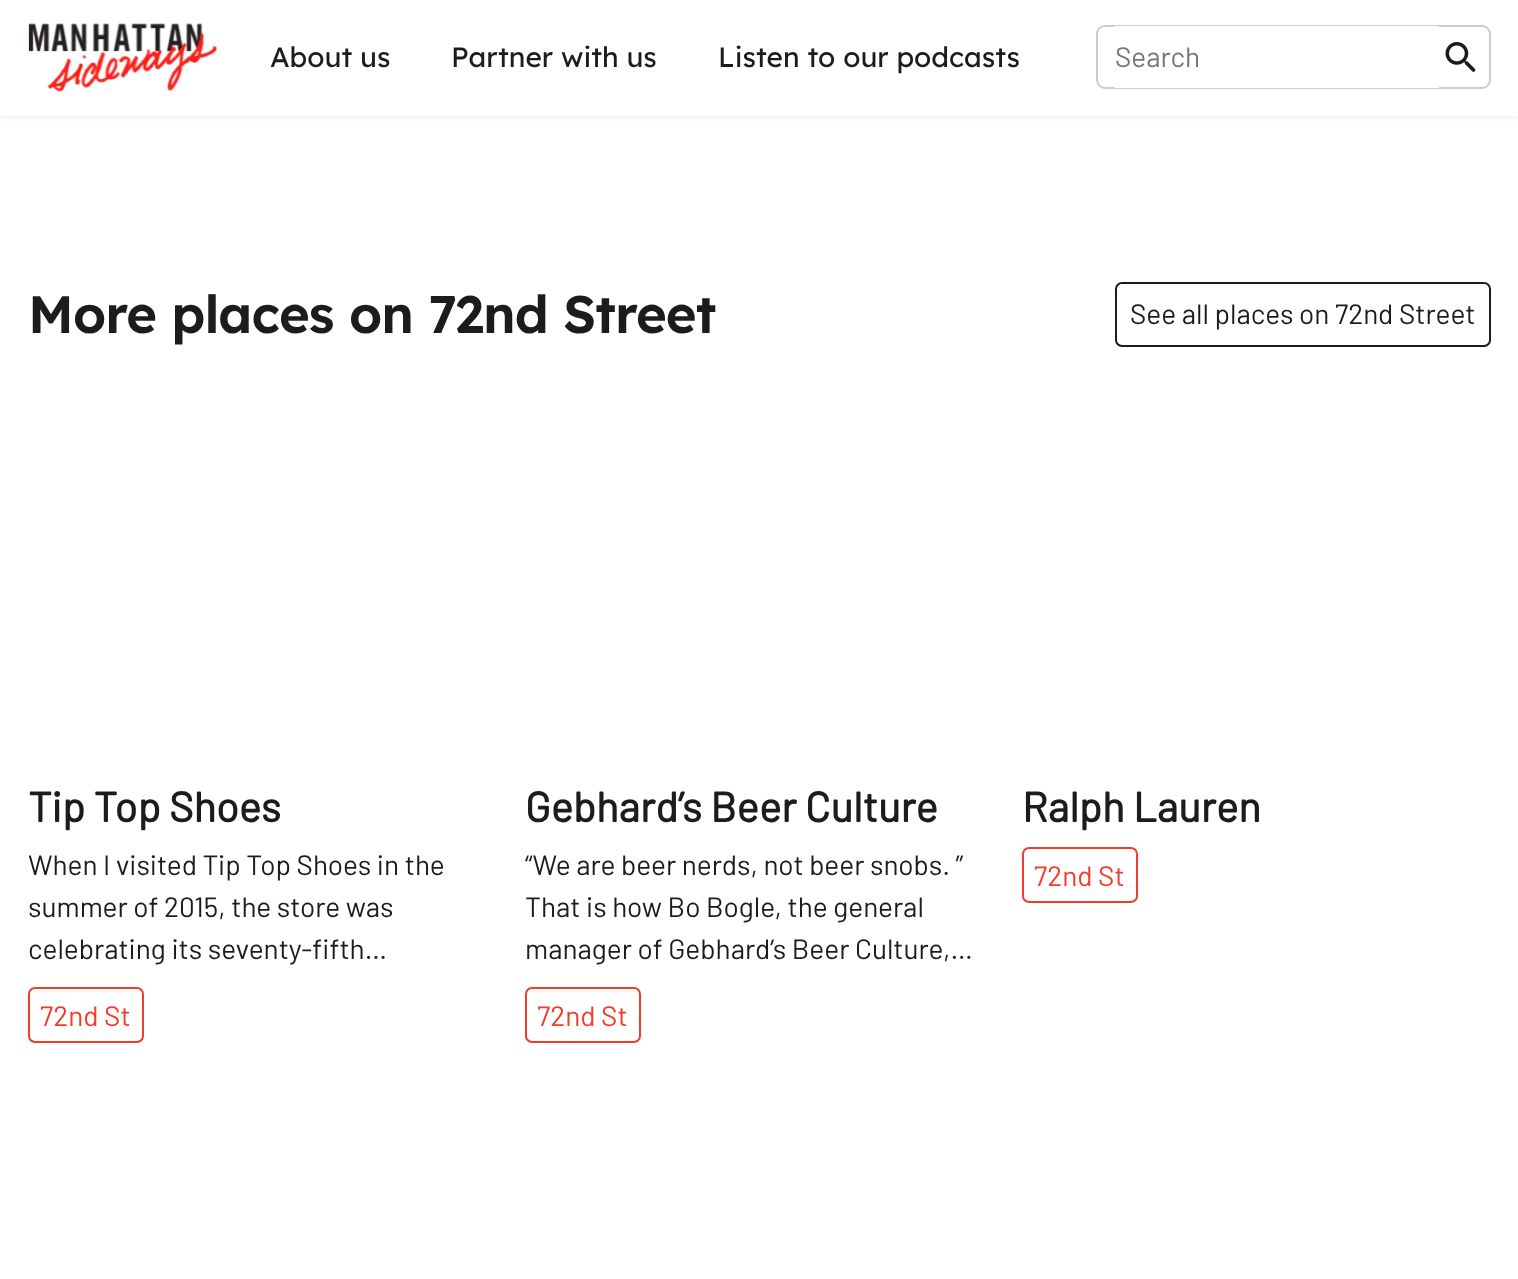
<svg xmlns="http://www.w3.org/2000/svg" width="1518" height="1279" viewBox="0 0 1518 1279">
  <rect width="100%" height="100%" fill="#fff"/>
  <path d="M0 0h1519v116H0z" fill="#0000001a" filter="blur(3.5px)"/>
  <path d="M0 0h1518v116H0z" fill="#fff"/>
  <image x="28" y="23" width="189" height="69" href="img/1.png"/>
  <rect x="1097" y="26" width="393" height="62" rx="8" fill="none" stroke="#ccc" stroke-width="2"/>
  <path d="M1115 26h324v62H1115z" fill="#fff"/>
  <image x="1445" y="42" width="31" height="30" href="img/2.png"/>
  <rect x="1116" y="283" width="374" height="63" rx="6" fill="none" stroke="#1b1c1c" stroke-width="2"/>
  <rect x="29" y="988" width="114" height="54" rx="6" fill="none" stroke="#f13c2c" stroke-width="2"/>
  <rect x="526" y="988" width="114" height="54" rx="6" fill="none" stroke="#f13c2c" stroke-width="2"/>
  <rect x="1023" y="848" width="114" height="54" rx="6" fill="none" stroke="#f13c2c" stroke-width="2"/>
  <g font-family="Lexend" font-size="28" fill="#1b1c1c">
    <text x="270" y="67">About us</text>
    <text x="451" y="67">Partner with us</text>
    <text x="718" y="67">Listen to our podcasts</text>
  </g>
  <text x="1115" y="67" font-family="Barlow" font-size="28" fill="#757575">Search</text>
  <text x="28" y="333" font-family="Lexend" font-size="52.5" font-weight="600" letter-spacing="-0.9" fill="#1b1c1c">More places on 72nd Street</text>
  <text x="1130" y="324" font-family="Barlow" font-size="28" fill="#1b1c1c">See all places on 72nd Street</text>
  <text x="28" y="822" font-family="Barlow" font-size="42" font-weight="bold" fill="#1b1c1c">Tip Top Shoes</text>
  <g font-family="Barlow" font-size="28" fill="#1b1c1c">
    <text x="28" y="875">When I visited Tip Top Shoes in the</text>
    <text x="28" y="917">summer of 2015, the store was</text>
    <text x="28" y="959">celebrating its seventy-fifth…</text>
  </g>
  <text x="40" y="1026" font-family="Barlow" font-size="28" fill="#f13c2c">72nd St</text>
  <text x="525" y="822" font-family="Barlow" font-size="42" font-weight="bold" fill="#1b1c1c">Gebhard’s Beer Culture</text>
  <g font-family="Barlow" font-size="28" fill="#1b1c1c">
    <text x="525" y="875">“We are beer nerds, not beer snobs. ”</text>
    <text x="525" y="917">That is how Bo Bogle, the general</text>
    <text x="525" y="959">manager of Gebhard’s Beer Culture,…</text>
  </g>
  <text x="537" y="1026" font-family="Barlow" font-size="28" fill="#f13c2c">72nd St</text>
  <text x="1022" y="822" font-family="Barlow" font-size="42" font-weight="bold" fill="#1b1c1c">Ralph Lauren</text>
  <text x="1034" y="886" font-family="Barlow" font-size="28" fill="#f13c2c">72nd St</text>
</svg>
